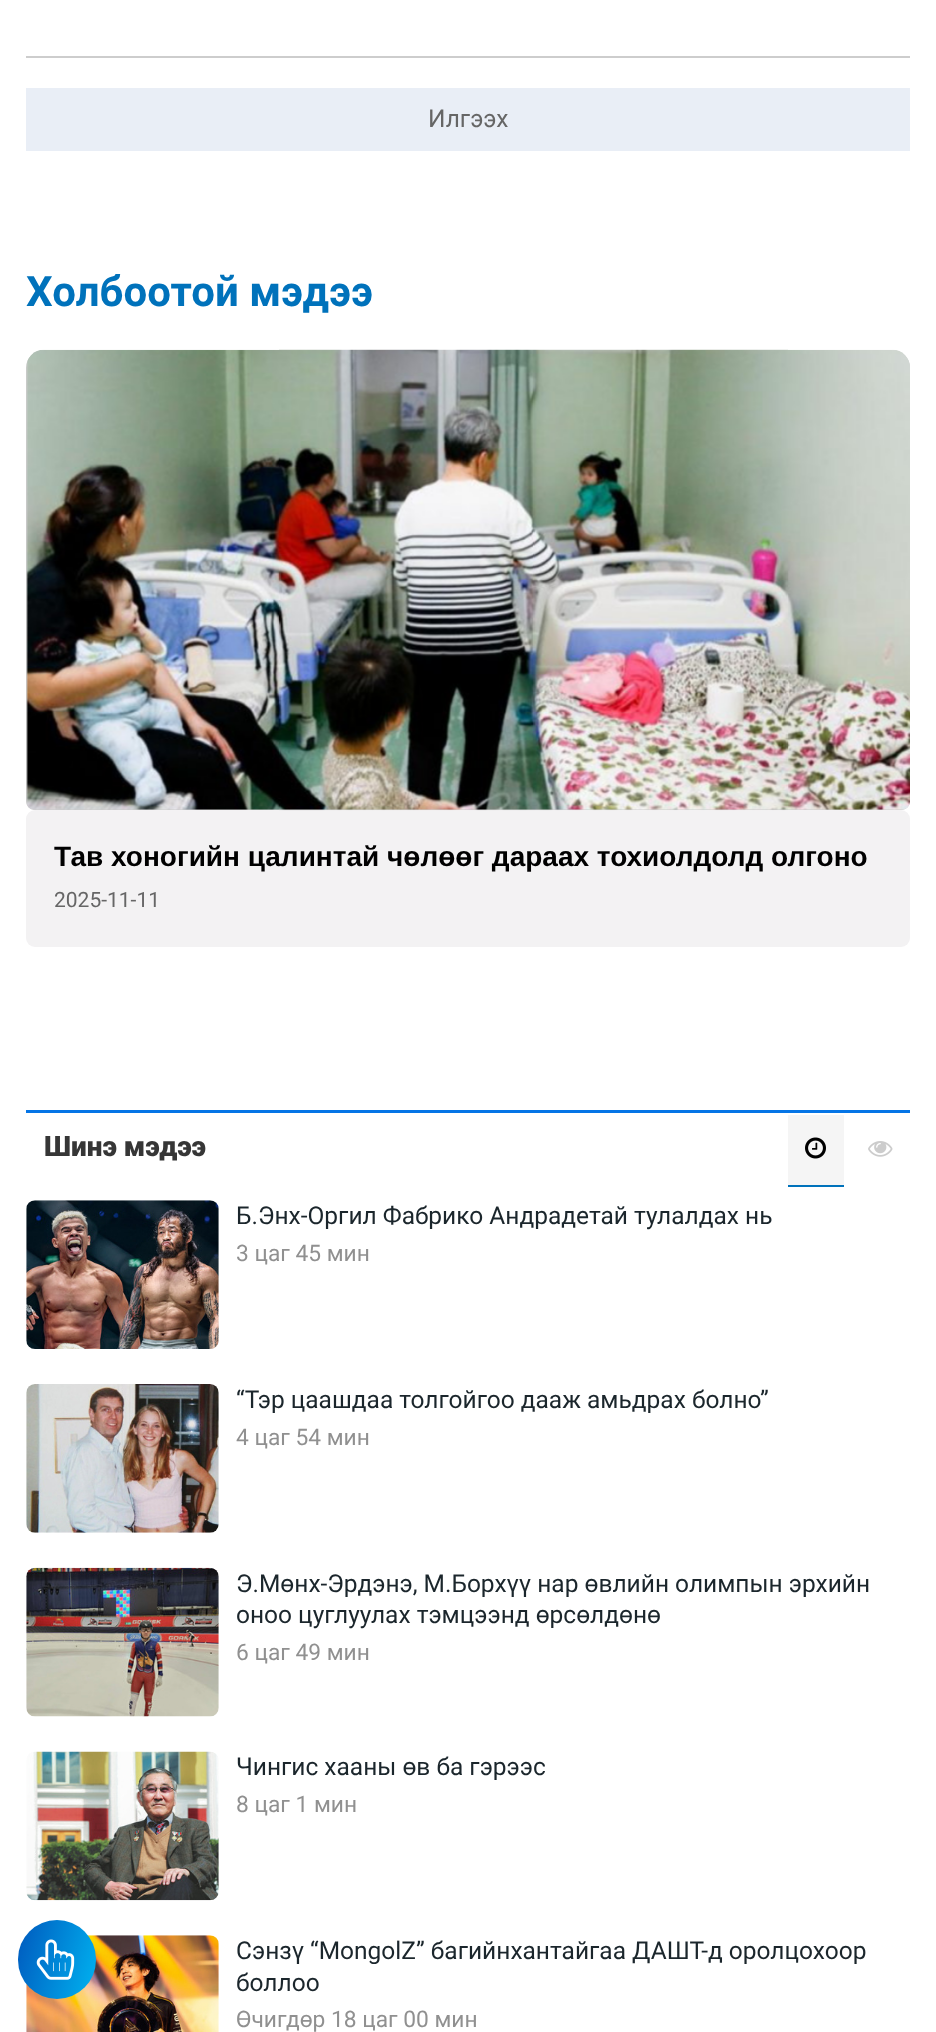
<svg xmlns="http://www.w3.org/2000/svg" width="936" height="2032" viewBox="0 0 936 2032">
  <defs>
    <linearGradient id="g1" gradientUnits="userSpaceOnUse" x1="104" y1="1973" x2="10" y2="1946"><stop offset="0" stop-color="#00b4f1"/><stop offset="1" stop-color="#0058bd"/></linearGradient>
  </defs>
  <rect width="100%" height="100%" fill="#fff"/>
  <path d="M26 56h884v2H26z" fill="#cdcdcd"/>
  <path d="M26 88h884v63H26z" fill="#e9eef6"/>
  <path d="M44 350H892C902 350 910 358 910 368V801C910 806 906 810 901 810H35C30 810 26 806 26 801V368C26 358 34 350 44 350Z" fill="#ccc"/>
  <rect x="26" y="810" width="884" height="137" rx="9" fill="#f3f2f3"/>
  <image x="26" y="349" width="884" height="462" href="img/1.png"/>
  <path d="M26 1110h884v3H26z" fill="#0575e6"/>
  <path d="M788 1115h56v70H788z" fill="#f5f5f5"/>
  <path d="M788 1185h56v2H788z" fill="#0072bb"/>
  <image x="805" y="1137" width="21" height="22" href="img/2.png"/>
  <image x="868" y="1141" width="25" height="16" href="img/3.png"/>
  <image x="26" y="1200" width="193" height="149" href="img/4.png"/>
  <image x="26" y="1384" width="193" height="149" href="img/5.png"/>
  <image x="26" y="1567" width="193" height="150" href="img/6.png"/>
  <image x="26" y="1751" width="193" height="150" href="img/7.png"/>
  <image x="26" y="1935" width="193" height="97" href="img/8.png"/>
  <rect x="18" y="1920" width="78" height="79" rx="39" fill="url(#g1)"/>
  <image x="36" y="1939" width="39" height="41" href="img/9.png"/>
  <text x="428" y="127" font-family="Roboto" font-size="24.5" fill="#666">Илгээх</text>
  <text x="26" y="306" font-family="Roboto" font-size="42" font-weight="bold" fill="#0072bb">Холбоотой мэдээ</text>
  <text x="54" y="866" font-family="Liberation Sans" font-size="28" font-weight="bold" fill="#000">Тав хоногийн цалинтай чөлөөг дараах тохиолдолд олгоно</text>
  <text x="54" y="907" font-family="Roboto" font-size="21" fill="#666">2025-11-11</text>
  <text x="44" y="1156" font-family="Roboto" font-size="28" font-weight="900" fill="#363636">Шинэ мэдээ</text>
  <text x="236" y="1224" font-family="Roboto" font-size="24.5" fill="#1b262c">Б.Энх-Оргил Фабрико Андрадетай тулалдах нь</text>
  <text x="236" y="1261" font-family="Roboto" font-size="22.75" fill="#909090">3 цаг 45 мин</text>
  <text x="236" y="1408" font-family="Roboto" font-size="24.5" fill="#1b262c">“Тэр цаашдаа толгойгоо дааж амьдрах болно”</text>
  <text x="236" y="1445" font-family="Roboto" font-size="22.75" fill="#909090">4 цаг 54 мин</text>
  <g font-family="Roboto" font-size="24.5" fill="#1b262c">
    <text x="236" y="1592">Э.Мөнх-Эрдэнэ, М.Борхүү нар өвлийн олимпын эрхийн</text>
    <text x="236" y="1623">оноо цуглуулах тэмцээнд өрсөлдөнө</text>
  </g>
  <text x="236" y="1660" font-family="Roboto" font-size="22.75" fill="#909090">6 цаг 49 мин</text>
  <text x="236" y="1775" font-family="Roboto" font-size="24.5" fill="#1b262c">Чингис хааны өв ба гэрээс</text>
  <text x="236" y="1812" font-family="Roboto" font-size="22.75" fill="#909090">8 цаг 1 мин</text>
  <g font-family="Roboto" font-size="24.5" fill="#1b262c">
    <text x="236" y="1959">Сэнзү “MongolZ” багийнхантайгаа ДАШТ-д оролцохоор</text>
    <text x="236" y="1991">боллоо</text>
  </g>
  <text x="236" y="2027" font-family="Roboto" font-size="22.75" fill="#909090">Өчигдөр 18 цаг 00 мин</text>
</svg>
